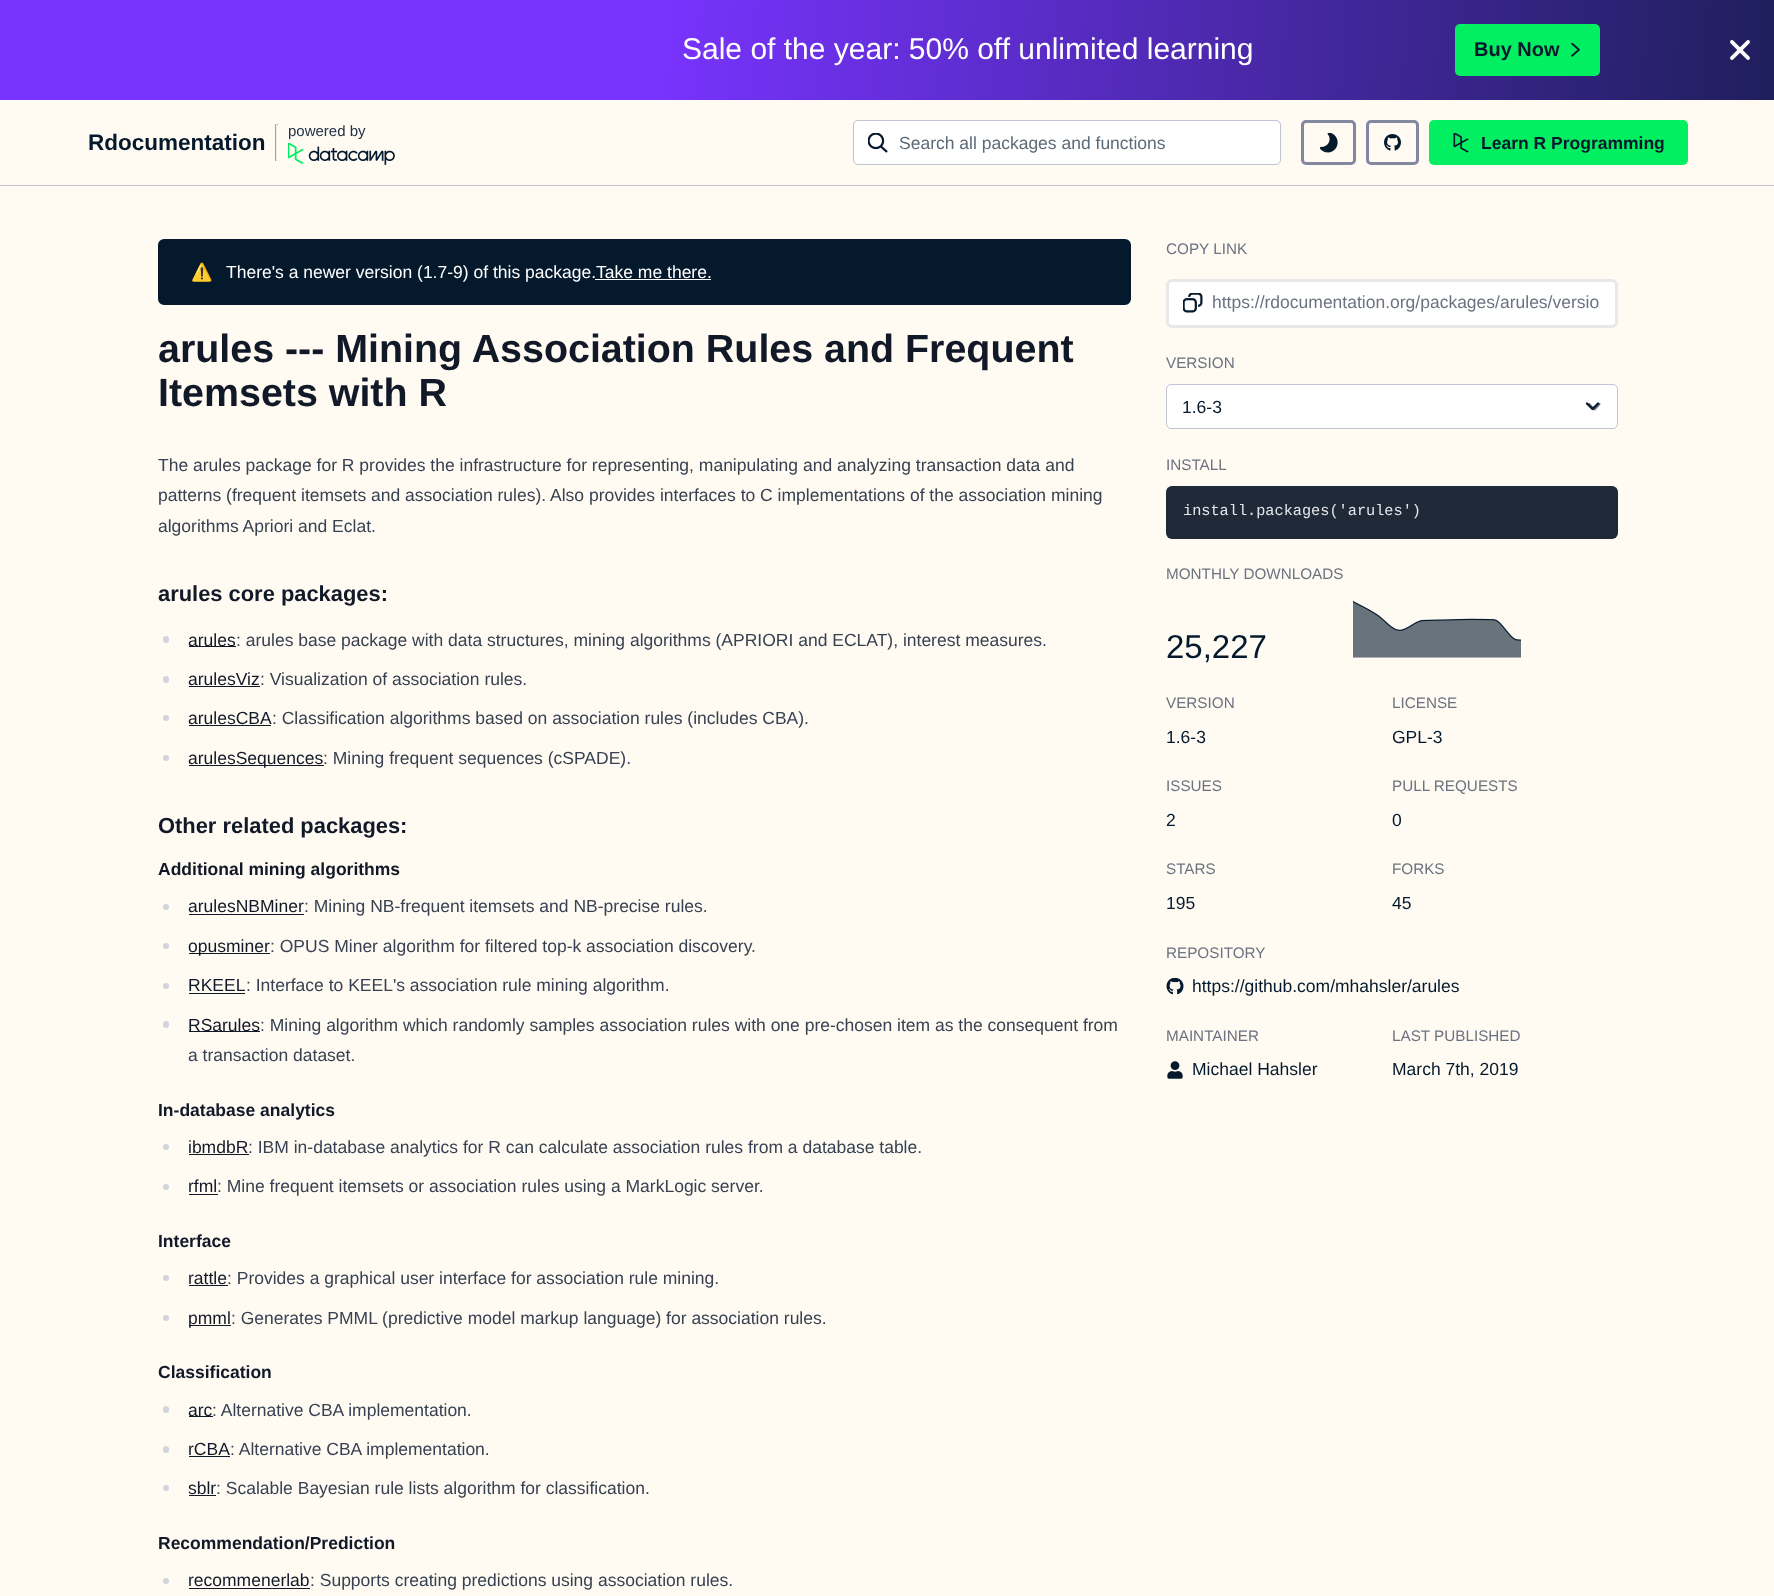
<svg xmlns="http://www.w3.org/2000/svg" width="1774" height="1596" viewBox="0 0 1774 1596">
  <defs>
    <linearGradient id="g1" gradientUnits="userSpaceOnUse" x1="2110" y1="-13" x2="660" y2="-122"><stop offset="0" stop-color="#05192d"/><stop offset="1" stop-color="#7933ff"/></linearGradient>
  </defs>
  <rect width="100%" height="100%" fill="#fffbf3"/>
  <path d="M0 0h1774v100H0z" fill="url(#g1)"/>
  <rect x="1455" y="24" width="145" height="52" rx="5" fill="#03ef62"/>
  <image x="1571" y="43" width="9" height="14" href="img/1.png"/>
  <image x="1730" y="40" width="20" height="20" href="img/2.png"/>
  <path d="M275 124h3v1H275z" fill="#9f9f9f"/>
  <path d="M276 124h1v37H276z" fill="#eee"/>
  <path d="M275 160h3v1H275z" fill="#eee"/>
  <path d="M275 124h1v37H275z" fill="#9f9f9f"/>
  <image x="288" y="143" width="107" height="22" href="img/3.png"/>
  <rect x="853" y="120" width="428" height="45" rx="5" fill="#fff"/>
  <rect x="853.5" y="120.5" width="427" height="44" rx="4.5" fill="none" stroke="#3039694d"/>
  <image x="868" y="133" width="20" height="20" href="img/4.png"/>
  <rect x="1302.5" y="121.5" width="52" height="42" rx="3.5" fill="none" stroke="#8387a0" stroke-width="3"/>
  <image x="1319" y="133" width="19" height="20" href="img/5.png"/>
  <rect x="1367.5" y="121.5" width="50" height="42" rx="3.5" fill="none" stroke="#8387a0" stroke-width="3"/>
  <image x="1384" y="134" width="17" height="17" href="img/6.png"/>
  <rect x="1429" y="120" width="259" height="45" rx="5" fill="#03ef62"/>
  <image x="1453" y="133" width="16" height="20" href="img/7.png"/>
  <path d="M0 185h1774v1H0z" fill="#c1c1ca"/>
  <rect x="159.5" y="240.5" width="970" height="63" rx="4.5" fill="#05192d" stroke="#05192d" stroke-width="3"/>
  <path d="M595 279h116v1H595z" fill="#fff"/>
  <rect x="163" y="636" width="6" height="7" rx="3" fill="#d1d5db"/>
  <path d="M189 646h47v1H189z" fill="#111827"/>
  <rect x="163" y="676" width="6" height="7" rx="3" fill="#d1d5db"/>
  <path d="M189 686h71v1H189z" fill="#111827"/>
  <circle cx="166" cy="718" r="3" fill="#d1d5db"/>
  <path d="M189 725h82v1H189z" fill="#111827"/>
  <circle cx="166" cy="758" r="3" fill="#d1d5db"/>
  <path d="M189 765h135v1H189z" fill="#111827"/>
  <circle cx="166" cy="907" r="3" fill="#d1d5db"/>
  <path d="M189 914h115v1H189z" fill="#111827"/>
  <circle cx="166" cy="946" r="3" fill="#d1d5db"/>
  <path d="M189 953h81v1H189z" fill="#111827"/>
  <circle cx="166" cy="986" r="3" fill="#d1d5db"/>
  <path d="M189 993h56v1H189z" fill="#111827"/>
  <rect x="163" y="1021" width="6" height="7" rx="3" fill="#d1d5db"/>
  <path d="M189 1031h71v1H189z" fill="#111827"/>
  <circle cx="166" cy="1147" r="3" fill="#d1d5db"/>
  <path d="M189 1154h60v1H189z" fill="#111827"/>
  <circle cx="166" cy="1187" r="3" fill="#d1d5db"/>
  <path d="M189 1194h29v1H189z" fill="#111827"/>
  <circle cx="166" cy="1278" r="3" fill="#d1d5db"/>
  <path d="M189 1285h39v1H189z" fill="#111827"/>
  <circle cx="166" cy="1318" r="3" fill="#d1d5db"/>
  <path d="M189 1325h42v1H189z" fill="#111827"/>
  <rect x="163" y="1406" width="6" height="7" rx="3" fill="#d1d5db"/>
  <path d="M189 1416h24v1H189z" fill="#111827"/>
  <rect x="163" y="1446" width="6" height="7" rx="3" fill="#d1d5db"/>
  <path d="M189 1456h41v1H189z" fill="#111827"/>
  <circle cx="166" cy="1488" r="3" fill="#d1d5db"/>
  <path d="M189 1495h27v1H189z" fill="#111827"/>
  <circle cx="166" cy="1581" r="3" fill="#d1d5db"/>
  <path d="M189 1588h121v1H189z" fill="#111827"/>
  <rect x="1167.5" y="280.5" width="449" height="46" rx="4.5" fill="#fff" stroke="#e8e8ea" stroke-width="3"/>
  <image x="1183" y="293" width="20" height="20" href="img/8.png"/>
  <rect x="1166" y="384" width="452" height="45" rx="5" fill="#fff"/>
  <path d="M1589 404L1594.5 409.5L1599.5 404" fill="none" stroke="#6b7280" stroke-width="2" stroke-linecap="round" stroke-linejoin="round"/>
  <rect x="1166.5" y="384.5" width="451" height="44" rx="4.5" fill="none" stroke="#3039694d"/>
  <image x="1585" y="402" width="15" height="9" href="img/9.png"/>
  <rect x="1166" y="486" width="452" height="53" rx="6" fill="#1f2937"/>
  <image x="1353" y="601" width="168" height="57" href="img/10.png"/>
  <image x="1166" y="978" width="18" height="17" href="img/11.png"/>
  <image x="1167" y="1061" width="16" height="18" href="img/12.png"/>
  <text x="682" y="59" font-family="Liberation Sans" font-size="30" fill="#fff">Sale of the year: 50% off unlimited learning</text>
  <text x="1474" y="56" font-family="Liberation Sans" font-size="20" font-weight="bold" fill="#05192d">Buy Now</text>
  <text x="88" y="150" font-family="Liberation Sans" font-size="22.5" font-weight="bold" fill="#05192d">Rdocumentation</text>
  <text x="288" y="136" font-family="Liberation Sans" font-size="15" fill="#213147">powered by</text>
  <text x="899" y="149" font-family="Liberation Sans" font-size="17.5" fill="#5d6a77">Search all packages and functions</text>
  <text x="1481" y="149" font-family="Liberation Sans" font-size="17.5" font-weight="bold" fill="#05192d">Learn R Programming</text>
  <text x="191" y="278" font-family="Noto Color Emoji" font-size="17.5" fill="#fff">⚠️</text>
  <text x="226" y="278" font-family="Liberation Sans" font-size="17.5" fill="#fff">There's a newer version (1.7-9) of this package.Take me there.</text>
  <g font-family="Liberation Sans" font-size="39.4" font-weight="bold" fill="#111827">
    <text x="158" y="362">arules --- Mining Association Rules and Frequent</text>
    <text x="158" y="406">Itemsets with R</text>
  </g>
  <g font-family="Liberation Sans" font-size="17.5" fill="#374151">
    <text x="158" y="471">The arules package for R provides the infrastructure for representing, manipulating and analyzing transaction data and</text>
    <text x="158" y="501">patterns (frequent itemsets and association rules). Also provides interfaces to C implementations of the association mining</text>
    <text x="158" y="532">algorithms Apriori and Eclat.</text>
  </g>
  <text x="158" y="601" font-family="Liberation Sans" font-size="21.9" font-weight="bold" fill="#111827">arules core packages:</text>
  <text x="188" y="646" font-family="Liberation Sans" font-size="17.5" fill="#111827">arules</text>
  <text x="236" y="646" font-family="Liberation Sans" font-size="17.5" fill="#374151">: arules base package with data structures, mining algorithms (APRIORI and ECLAT), interest measures.</text>
  <text x="188" y="685" font-family="Liberation Sans" font-size="17.5" fill="#111827">arulesViz</text>
  <text x="260" y="685" font-family="Liberation Sans" font-size="17.5" fill="#374151">: Visualization of association rules.</text>
  <text x="188" y="724" font-family="Liberation Sans" font-size="17.5" fill="#111827">arulesCBA</text>
  <text x="272" y="724" font-family="Liberation Sans" font-size="17.5" fill="#374151">: Classification algorithms based on association rules (includes CBA).</text>
  <text x="188" y="764" font-family="Liberation Sans" font-size="17.5" fill="#111827">arulesSequences</text>
  <text x="323" y="764" font-family="Liberation Sans" font-size="17.5" fill="#374151">: Mining frequent sequences (cSPADE).</text>
  <text x="158" y="833" font-family="Liberation Sans" font-size="21.9" font-weight="bold" fill="#111827">Other related packages:</text>
  <text x="158" y="875" font-family="Liberation Sans" font-size="17.5" font-weight="bold" fill="#111827">Additional mining algorithms</text>
  <text x="188" y="912" font-family="Liberation Sans" font-size="17.5" fill="#111827">arulesNBMiner</text>
  <text x="304" y="912" font-family="Liberation Sans" font-size="17.5" fill="#374151">: Mining NB-frequent itemsets and NB-precise rules.</text>
  <text x="188" y="952" font-family="Liberation Sans" font-size="17.5" fill="#111827">opusminer</text>
  <text x="270" y="952" font-family="Liberation Sans" font-size="17.5" fill="#374151">: OPUS Miner algorithm for filtered top-k association discovery.</text>
  <text x="188" y="991" font-family="Liberation Sans" font-size="17.5" fill="#111827">RKEEL</text>
  <text x="246" y="991" font-family="Liberation Sans" font-size="17.5" fill="#374151">: Interface to KEEL's association rule mining algorithm.</text>
  <text x="188" y="1031" font-family="Liberation Sans" font-size="17.5" fill="#111827">RSarules</text>
  <g font-family="Liberation Sans" font-size="17.5" fill="#374151">
    <text x="260" y="1031">: Mining algorithm which randomly samples association rules with one pre-chosen item as the consequent from</text>
    <text x="188" y="1061">a transaction dataset.</text>
  </g>
  <text x="158" y="1116" font-family="Liberation Sans" font-size="17.5" font-weight="bold" fill="#111827">In-database analytics</text>
  <text x="188" y="1153" font-family="Liberation Sans" font-size="17.5" fill="#111827">ibmdbR</text>
  <text x="248" y="1153" font-family="Liberation Sans" font-size="17.5" fill="#374151">: IBM in-database analytics for R can calculate association rules from a database table.</text>
  <text x="188" y="1192" font-family="Liberation Sans" font-size="17.5" fill="#111827">rfml</text>
  <text x="217" y="1192" font-family="Liberation Sans" font-size="17.5" fill="#374151">: Mine frequent itemsets or association rules using a MarkLogic server.</text>
  <text x="158" y="1247" font-family="Liberation Sans" font-size="17.5" font-weight="bold" fill="#111827">Interface</text>
  <text x="188" y="1284" font-family="Liberation Sans" font-size="17.5" fill="#111827">rattle</text>
  <text x="227" y="1284" font-family="Liberation Sans" font-size="17.5" fill="#374151">: Provides a graphical user interface for association rule mining.</text>
  <text x="188" y="1324" font-family="Liberation Sans" font-size="17.5" fill="#111827">pmml</text>
  <text x="231" y="1324" font-family="Liberation Sans" font-size="17.5" fill="#374151">: Generates PMML (predictive model markup language) for association rules.</text>
  <text x="158" y="1378" font-family="Liberation Sans" font-size="17.5" font-weight="bold" fill="#111827">Classification</text>
  <text x="188" y="1416" font-family="Liberation Sans" font-size="17.5" fill="#111827">arc</text>
  <text x="212" y="1416" font-family="Liberation Sans" font-size="17.5" fill="#374151">: Alternative CBA implementation.</text>
  <text x="188" y="1455" font-family="Liberation Sans" font-size="17.5" fill="#111827">rCBA</text>
  <text x="230" y="1455" font-family="Liberation Sans" font-size="17.5" fill="#374151">: Alternative CBA implementation.</text>
  <text x="188" y="1494" font-family="Liberation Sans" font-size="17.5" fill="#111827">sblr</text>
  <text x="216" y="1494" font-family="Liberation Sans" font-size="17.5" fill="#374151">: Scalable Bayesian rule lists algorithm for classification.</text>
  <text x="158" y="1549" font-family="Liberation Sans" font-size="17.5" font-weight="bold" fill="#111827">Recommendation/Prediction</text>
  <text x="188" y="1586" font-family="Liberation Sans" font-size="17.5" fill="#111827">recommenerlab</text>
  <text x="310" y="1586" font-family="Liberation Sans" font-size="17.5" fill="#374151">: Supports creating predictions using association rules.</text>
  <text x="1166" y="254" font-family="Liberation Sans" font-size="15.25" fill="#6b7280">COPY LINK</text>
  <text x="1212" y="308" font-family="Liberation Sans" font-size="17.5" fill="#6b7280">https://rdocumentation.org/packages/arules/versio</text>
  <text x="1166" y="368" font-family="Liberation Sans" font-size="15.25" fill="#6b7280">VERSION</text>
  <text x="1182" y="413" font-family="Liberation Sans" font-size="17.5" fill="#05192d">1.6-3</text>
  <text x="1166" y="470" font-family="Liberation Sans" font-size="15.25" fill="#6b7280">INSTALL</text>
  <text x="1183" y="515" font-family="Liberation Mono" font-size="15.25" fill="#e5e7eb">install.packages('arules')</text>
  <text x="1166" y="579" font-family="Liberation Sans" font-size="15.25" fill="#6b7280">MONTHLY DOWNLOADS</text>
  <text x="1166" y="658" font-family="Liberation Sans" font-size="33" fill="#05192d">25,227</text>
  <text x="1166" y="708" font-family="Liberation Sans" font-size="15.25" fill="#6b7280">VERSION</text>
  <text x="1166" y="743" font-family="Liberation Sans" font-size="17.5" fill="#05192d">1.6-3</text>
  <text x="1392" y="708" font-family="Liberation Sans" font-size="15.25" fill="#6b7280">LICENSE</text>
  <text x="1392" y="743" font-family="Liberation Sans" font-size="17.5" fill="#05192d">GPL-3</text>
  <text x="1166" y="791" font-family="Liberation Sans" font-size="15.25" fill="#6b7280">ISSUES</text>
  <text x="1166" y="826" font-family="Liberation Sans" font-size="17.5" fill="#05192d">2</text>
  <text x="1392" y="791" font-family="Liberation Sans" font-size="15.25" fill="#6b7280">PULL REQUESTS</text>
  <text x="1392" y="826" font-family="Liberation Sans" font-size="17.5" fill="#05192d">0</text>
  <text x="1166" y="874" font-family="Liberation Sans" font-size="15.25" fill="#6b7280">STARS</text>
  <text x="1166" y="909" font-family="Liberation Sans" font-size="17.5" fill="#05192d">195</text>
  <text x="1392" y="874" font-family="Liberation Sans" font-size="15.25" fill="#6b7280">FORKS</text>
  <text x="1392" y="909" font-family="Liberation Sans" font-size="17.5" fill="#05192d">45</text>
  <text x="1166" y="958" font-family="Liberation Sans" font-size="15.25" fill="#6b7280">REPOSITORY</text>
  <text x="1192" y="992" font-family="Liberation Sans" font-size="17.5" fill="#05192d">https://github.com/mhahsler/arules</text>
  <text x="1166" y="1041" font-family="Liberation Sans" font-size="15.25" fill="#6b7280">MAINTAINER</text>
  <text x="1192" y="1075" font-family="Liberation Sans" font-size="17.5" fill="#05192d">Michael Hahsler</text>
  <text x="1392" y="1041" font-family="Liberation Sans" font-size="15.25" fill="#6b7280">LAST PUBLISHED</text>
  <text x="1392" y="1075" font-family="Liberation Sans" font-size="17.5" fill="#05192d">March 7th, 2019</text>
</svg>
